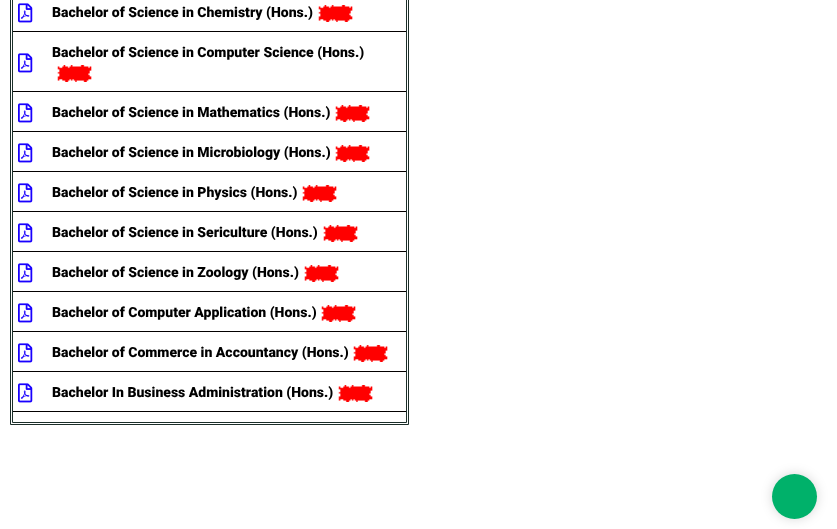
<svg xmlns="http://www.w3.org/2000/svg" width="837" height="529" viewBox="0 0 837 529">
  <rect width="100%" height="100%" fill="#fff"/>
  <path d="M10.5 -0.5h398v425H10.5z" fill="none" stroke="#1b2e29"/>
  <path d="M12.5 -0.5h394v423H12.5z" fill="none" stroke="#1b2e29"/>
  <image x="18" y="3" width="15" height="20" href="img/1.png"/>
  <image x="318" y="5" width="35" height="17" href="img/2.png"/>
  <path d="M13 31h393v1H13z" fill="#030000"/>
  <image x="18" y="53" width="15" height="20" href="img/1.png"/>
  <image x="57" y="65" width="35" height="17" href="img/2.png"/>
  <path d="M13 91h393v1H13z" fill="#030000"/>
  <image x="18" y="103" width="15" height="20" href="img/1.png"/>
  <image x="335" y="105" width="35" height="17" href="img/2.png"/>
  <path d="M13 131h393v1H13z" fill="#030000"/>
  <image x="18" y="143" width="15" height="20" href="img/1.png"/>
  <image x="335" y="145" width="35" height="17" href="img/2.png"/>
  <path d="M13 171h393v1H13z" fill="#030000"/>
  <image x="18" y="183" width="15" height="20" href="img/1.png"/>
  <image x="302" y="185" width="35" height="17" href="img/2.png"/>
  <path d="M13 211h393v1H13z" fill="#030000"/>
  <image x="18" y="223" width="15" height="20" href="img/1.png"/>
  <image x="323" y="225" width="35" height="17" href="img/2.png"/>
  <path d="M13 251h393v1H13z" fill="#030000"/>
  <image x="18" y="263" width="15" height="20" href="img/1.png"/>
  <image x="304" y="265" width="35" height="17" href="img/2.png"/>
  <path d="M13 291h393v1H13z" fill="#030000"/>
  <image x="18" y="303" width="15" height="20" href="img/1.png"/>
  <image x="321" y="305" width="35" height="17" href="img/2.png"/>
  <path d="M13 331h393v1H13z" fill="#030000"/>
  <image x="18" y="343" width="15" height="20" href="img/1.png"/>
  <image x="353" y="345" width="35" height="17" href="img/2.png"/>
  <path d="M13 371h393v1H13z" fill="#030000"/>
  <image x="18" y="383" width="15" height="20" href="img/1.png"/>
  <image x="338" y="385" width="35" height="17" href="img/2.png"/>
  <path d="M13 411h393v1H13z" fill="#030000"/>
  <rect x="772" y="474" width="45" height="45" rx="22.5" fill="#00000029" filter="blur(6px)"/>
  <circle cx="794.5" cy="496.5" r="22.5" fill="#00b16a"/>
  <g font-family="Roboto" font-size="14" font-weight="900" fill="#000">
    <text x="52" y="17">Bachelor of Science in Chemistry (Hons.)</text>
    <text x="52" y="57">Bachelor of Science in Computer Science (Hons.)</text>
    <text x="52" y="117">Bachelor of Science in Mathematics (Hons.)</text>
    <text x="52" y="157">Bachelor of Science in Microbiology (Hons.)</text>
    <text x="52" y="197">Bachelor of Science in Physics (Hons.)</text>
    <text x="52" y="237">Bachelor of Science in Sericulture (Hons.)</text>
    <text x="52" y="277">Bachelor of Science in Zoology (Hons.)</text>
    <text x="52" y="317">Bachelor of Computer Application (Hons.)</text>
    <text x="52" y="357">Bachelor of Commerce in Accountancy (Hons.)</text>
    <text x="52" y="397">Bachelor In Business Administration (Hons.)</text>
  </g>
</svg>
